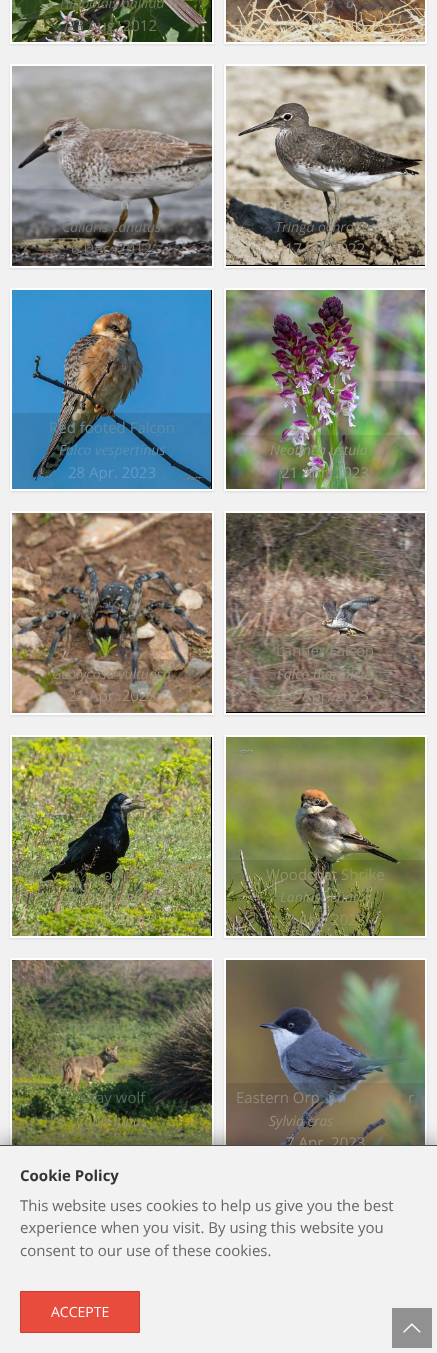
<svg xmlns="http://www.w3.org/2000/svg" width="437" height="1353" viewBox="0 0 437 1353">
  <rect width="100%" height="100%" fill="#f1f1f1"/>
  <path d="M10 -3h204v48H10z" fill="#0000001a" filter="blur(1px)"/>
  <path d="M10 0h204v44H10z" fill="#fff"/>
  <path d="M211 0h1v42H211z" fill="#000"/>
  <image x="12" y="0" width="199" height="42" href="img/1.png"/>
  <path d="M224 -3h203v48H224z" fill="#0000001a" filter="blur(1px)"/>
  <path d="M224 0h203v44H224z" fill="#fff"/>
  <image x="226" y="0" width="199" height="42" href="img/2.png"/>
  <path d="M10 65h204v204H10z" fill="#0000001a" filter="blur(1px)"/>
  <path d="M10 64h204v204H10z" fill="#fff"/>
  <image x="12" y="66" width="200" height="200" href="img/3.png"/>
  <path d="M12 189h200v77H12z" fill="#0000001a"/>
  <path d="M224 65h203v204H224z" fill="#0000001a" filter="blur(1px)"/>
  <path d="M224 64h203v204H224z" fill="#fff"/>
  <path d="M226 265h199v1H226z" fill="#000"/>
  <image x="226" y="66" width="199" height="199" href="img/4.png"/>
  <path d="M226 189h199v76H226z" fill="#0000001a"/>
  <path d="M10 289h204v203H10z" fill="#0000001a" filter="blur(1px)"/>
  <path d="M10 288h204v203H10z" fill="#fff"/>
  <path d="M211 290h1v199H211z" fill="#000"/>
  <image x="12" y="290" width="199" height="199" href="img/5.png"/>
  <path d="M12 413h199v76H12z" fill="#0000001a"/>
  <path d="M224 289h203v203H224z" fill="#0000001a" filter="blur(1px)"/>
  <path d="M224 288h203v203H224z" fill="#fff"/>
  <image x="226" y="290" width="199" height="199" href="img/6.png"/>
  <path d="M226 435h199v54H226z" fill="#0000001a"/>
  <path d="M10 512h204v204H10z" fill="#0000001a" filter="blur(1px)"/>
  <path d="M10 511h204v204H10z" fill="#fff"/>
  <image x="12" y="513" width="200" height="200" href="img/7.png"/>
  <path d="M12 659h200v54H12z" fill="#0000001a"/>
  <path d="M224 512h203v204H224z" fill="#0000001a" filter="blur(1px)"/>
  <path d="M224 511h203v204H224z" fill="#fff"/>
  <path d="M226 712h199v1H226z" fill="#000"/>
  <image x="226" y="513" width="199" height="199" href="img/8.png"/>
  <path d="M226 636h199v76H226z" fill="#0000001a"/>
  <path d="M10 736h204v203H10z" fill="#0000001a" filter="blur(1px)"/>
  <path d="M10 735h204v203H10z" fill="#fff"/>
  <path d="M211 737h1v199H211z" fill="#000"/>
  <image x="12" y="737" width="199" height="199" href="img/9.png"/>
  <path d="M12 860h199v76H12z" fill="#0000001a"/>
  <path d="M224 736h203v203H224z" fill="#0000001a" filter="blur(1px)"/>
  <path d="M224 735h203v203H224z" fill="#fff"/>
  <image x="226" y="737" width="199" height="199" href="img/10.png"/>
  <path d="M226 860h199v76H226z" fill="#0000001a"/>
  <path d="M10 959h204v204H10z" fill="#0000001a" filter="blur(1px)"/>
  <path d="M10 958h204v187H10z" fill="#fff"/>
  <image x="12" y="960" width="200" height="185" href="img/11.png"/>
  <path d="M12 1083h200v62H12z" fill="#0000001a"/>
  <path d="M224 959h203v204H224z" fill="#0000001a" filter="blur(1px)"/>
  <path d="M224 958h203v187H224z" fill="#fff"/>
  <image x="226" y="960" width="199" height="185" href="img/12.png"/>
  <path d="M226 1083h199v62H226z" fill="#0000001a"/>
  <path d="M0 1142h437v208H0z" fill="#00000066" filter="blur(10px)"/>
  <text x="60" y="8" font-family="Open Sans" font-size="14" font-style="italic" fill="#6b7558">Hippolais pallida</text>
  <text x="67" y="31" font-family="Open Sans" font-size="15" fill="#727864">23 Aug. 2012</text>
  <g font-family="Open Sans" font-size="14" font-style="italic" fill="#8e7e72">
    <text x="326" y="8">a</text>
    <text x="346" y="8">a</text>
  </g>
  <text x="286" y="31" font-family="Open Sans" font-size="15" fill="#c6b8a0">5 Oct. 2016</text>
  <text x="120" y="209" font-family="Open Sans" font-size="15" fill="#acaeb2">n</text>
  <text x="62" y="232" font-family="Open Sans" font-size="14" font-style="italic" fill="#797776">Calidris canutus</text>
  <text x="71" y="254" font-family="Open Sans" font-size="15" fill="#76726e">6 Dec. 2012</text>
  <text x="277" y="209" font-family="Open Sans" font-size="15" fill="#b8af9f">re</text>
  <text x="275" y="232" font-family="Open Sans" font-size="14" font-style="italic" fill="#76726e">Tringa ochropus</text>
  <text x="285" y="254" font-family="Open Sans" font-size="15" fill="#8e7e72">17 Jul. 2022</text>
  <text x="49" y="433" font-family="Open Sans" font-size="15" fill="#618ba5">Red footed Falcon</text>
  <text x="59" y="455" font-family="Open Sans" font-size="14" font-style="italic" fill="#5a90b4">Falco vespertinus</text>
  <text x="68" y="478" font-family="Open Sans" font-size="15" fill="#619bc5">28 Apr. 2023</text>
  <text x="270" y="455" font-family="Open Sans" font-size="14" font-style="italic" fill="#8e9d73">Neotinea ustula</text>
  <text x="281" y="478" font-family="Open Sans" font-size="15" fill="#8f9b7d">21 Apr. 2023</text>
  <text x="52" y="679" font-family="Open Sans" font-size="14" font-style="italic" fill="#9a8b78">Geolycosa vultuosa</text>
  <text x="68" y="701" font-family="Open Sans" font-size="15" fill="#a1907f">21 Apr. 2023</text>
  <text x="276" y="656" font-family="Open Sans" font-size="15" fill="#90887b">Lanner Falcon</text>
  <text x="277" y="679" font-family="Open Sans" font-size="14" font-style="italic" fill="#9b8f84">Falco biarmicus</text>
  <text x="281" y="701" font-family="Open Sans" font-size="15" fill="#9b8f84">21 Apr. 2023</text>
  <text x="103" y="880" font-family="Open Sans" font-size="15" fill="#6b7558">o</text>
  <text x="59" y="902" font-family="Open Sans" font-size="14" font-style="italic" fill="#9ea177">Corvus frugilegus</text>
  <text x="72" y="925" font-family="Open Sans" font-size="15" fill="#a7af67">7 Apr. 2023</text>
  <text x="266" y="880" font-family="Open Sans" font-size="15" fill="#919567">Woodchat Shrike</text>
  <text x="280" y="902" font-family="Open Sans" font-size="14" font-style="italic" fill="#919567">Lanius senator</text>
  <text x="286" y="925" font-family="Open Sans" font-size="15" fill="#919567">7 Apr. 2023</text>
  <text x="79" y="1103" font-family="Open Sans" font-size="15" fill="#576852">Gray wolf</text>
  <text x="76" y="1126" font-family="Open Sans" font-size="14" font-style="italic" fill="#90945b">Canis lupus</text>
  <g font-family="Open Sans" font-size="15" fill="#90887b">
    <text x="236" y="1103">Eastern Orp</text>
    <text x="408" y="1103">r</text>
  </g>
  <text x="269" y="1126" font-family="Open Sans" font-size="14" font-style="italic" fill="#9a8b78">Sylvia cras</text>
  <text x="286" y="1148" font-family="Open Sans" font-size="15" fill="#9a8b78">7 Apr. 2023</text>
  <path d="M0 1146h437v207H0z" fill="#f2f2f2"/>
  <path d="M0 1145h437v1H0z" fill="#4a4a4a"/>
  <text x="20" y="1181" font-family="Open Sans" font-size="15" font-weight="bold" fill="#343434">Cookie Policy</text>
  <g font-family="Open Sans" font-size="15" fill="#666">
    <text x="20" y="1211">This website uses cookies to help us give you the best</text>
    <text x="20" y="1233">experience when you visit. By using this website you</text>
    <text x="20" y="1256">consent to our use of these cookies.</text>
  </g>
  <path d="M20.5 1291.5h119v41H20.5z" fill="#e84c3d" stroke="#cd3c2e"/>
  <text x="51" y="1317" font-family="Open Sans" font-size="14" fill="#fff">ACCEPTE</text>
  <path d="M392 1308h40v40H392z" fill="#919191"/>
  <image x="403" y="1323" width="18" height="10" href="img/13.png"/>
</svg>
